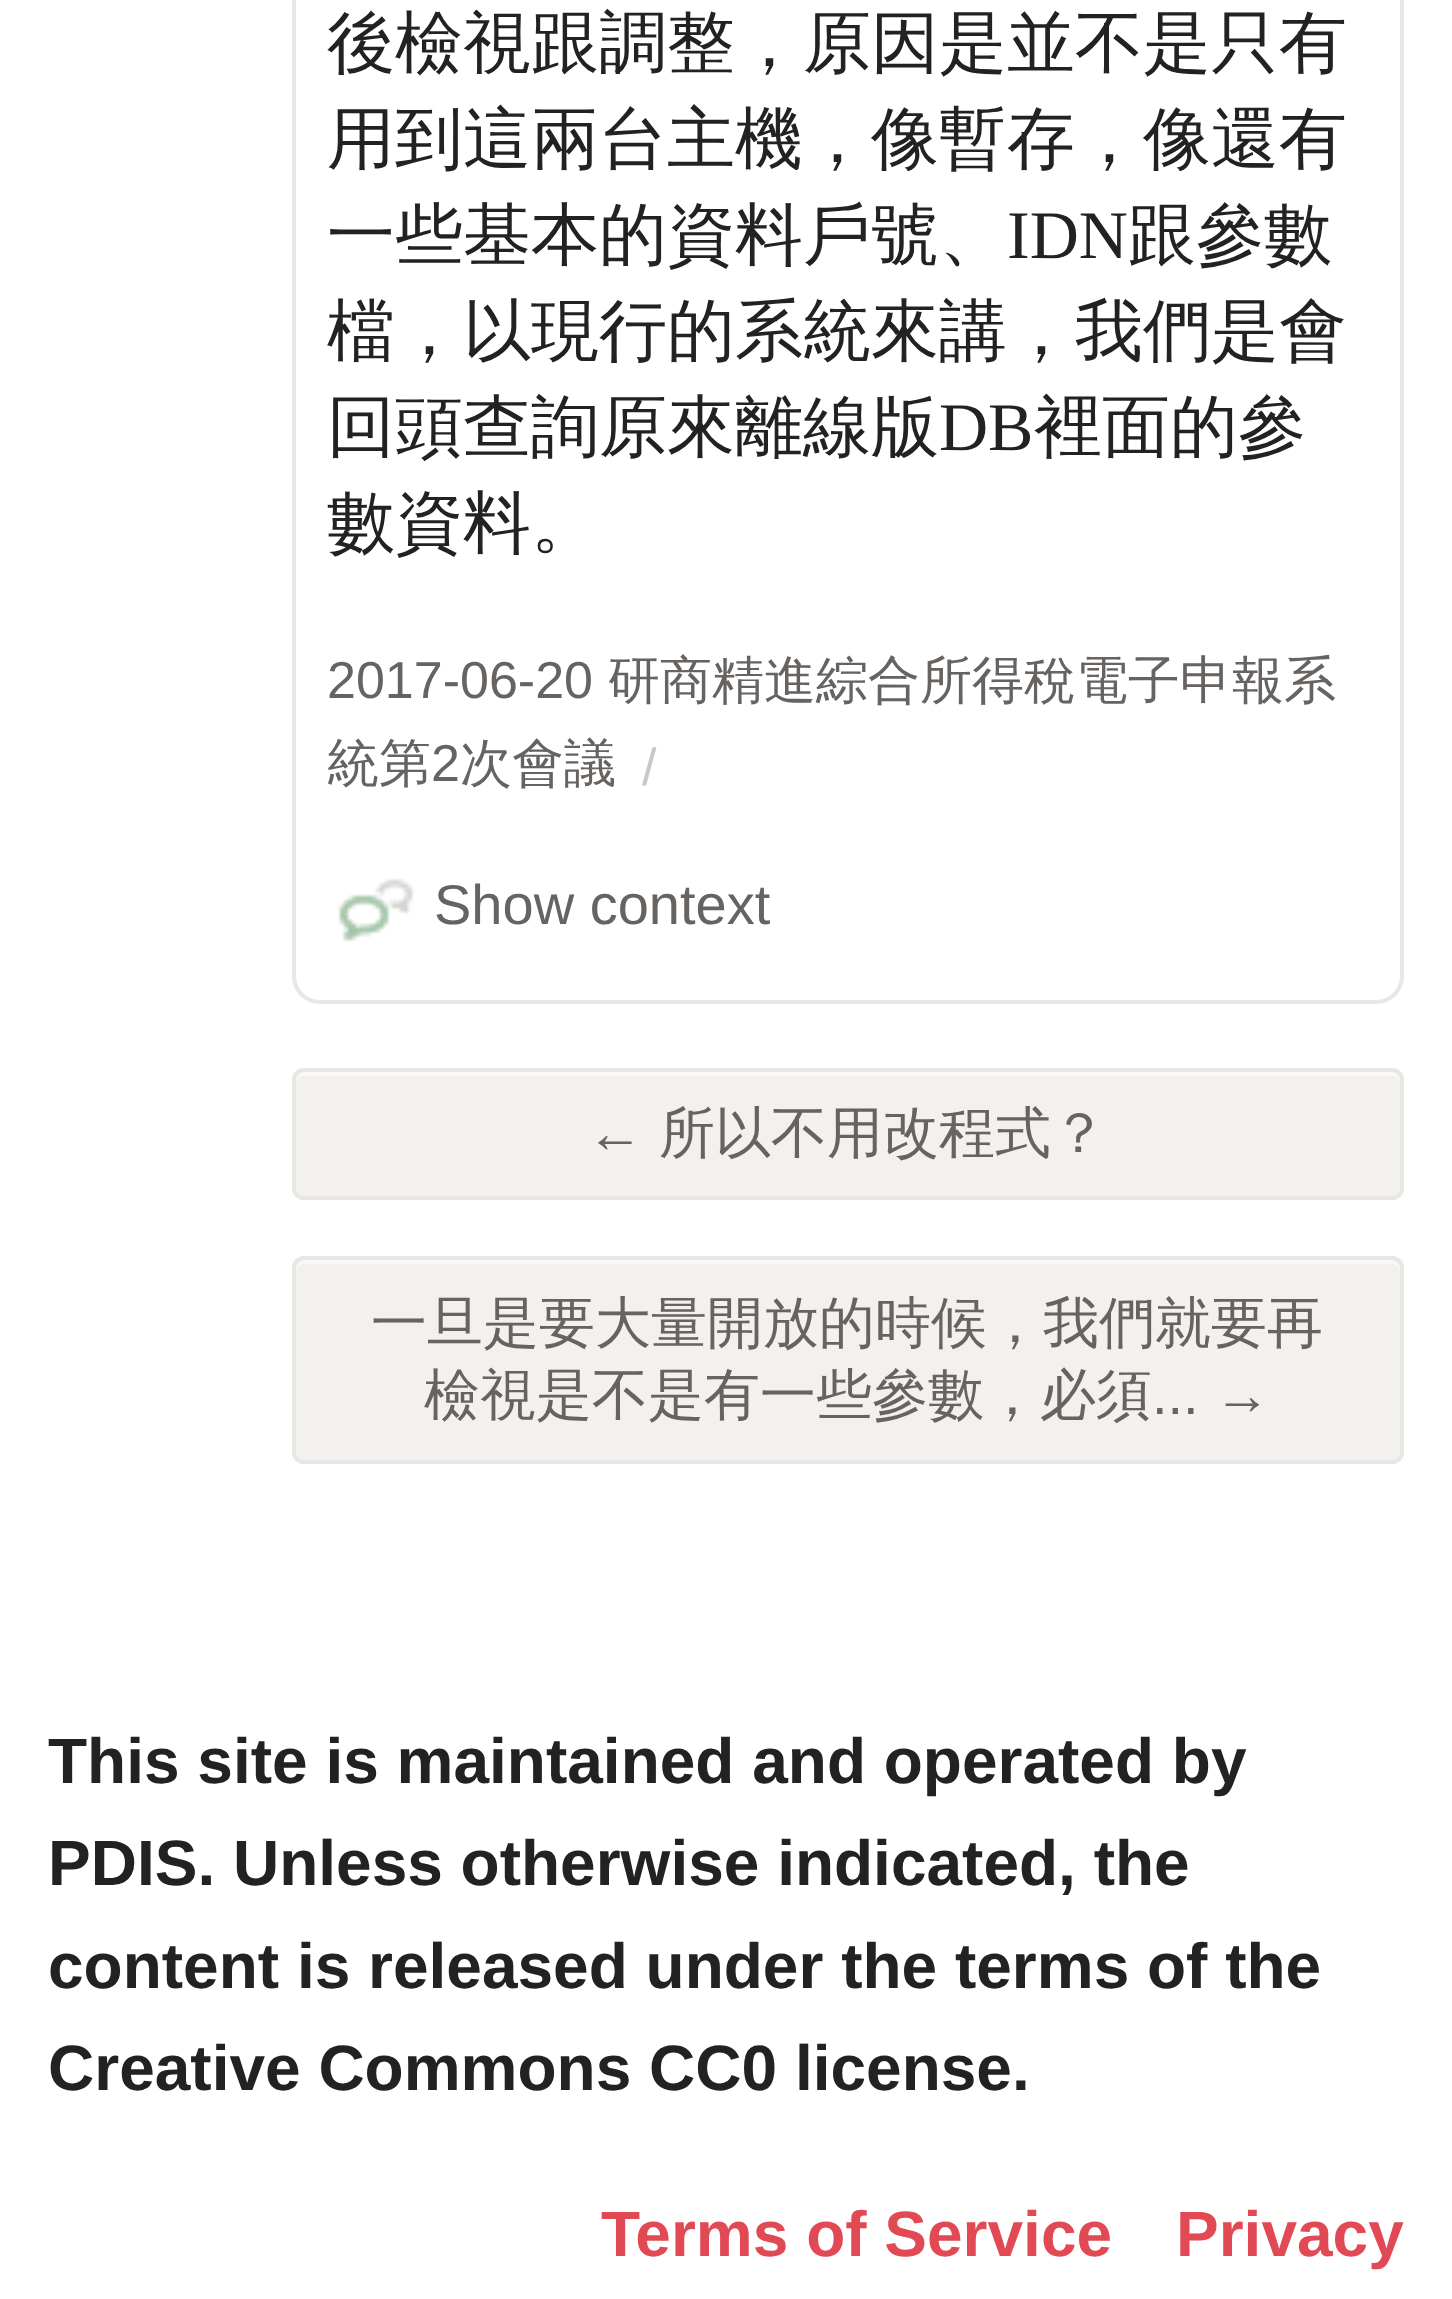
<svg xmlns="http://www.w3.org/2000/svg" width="1452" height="2299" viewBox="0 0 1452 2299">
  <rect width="100%" height="100%" fill="#fff"/>
  <rect x="294" y="-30" width="1108" height="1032" rx="26" fill="none" stroke="#e9e7e4" stroke-width="4"/>
  <image x="338" y="878" width="76" height="64" href="img/1.png"/>
  <rect x="292" y="1068" width="1112" height="132" rx="12" fill="#f2f1ef"/>
  <path d="M304 1076H1392C1396 1076 1400 1080 1400 1084V1080C1400 1076 1396 1072 1392 1072H304C300 1072 296 1076 296 1080V1084C296 1080 300 1076 304 1076Z" fill="#f9f8f7"/>
  <rect x="294" y="1070" width="1108" height="128" rx="10" fill="none" stroke="#e9e7e4" stroke-width="4"/>
  <rect x="292" y="1256" width="1112" height="208" rx="12" fill="#f2f1ef"/>
  <path d="M304 1264H1392C1396 1264 1400 1268 1400 1272V1268C1400 1264 1396 1260 1392 1260H304C300 1260 296 1264 296 1268V1272C296 1268 300 1264 304 1264Z" fill="#f9f8f7"/>
  <rect x="294" y="1258" width="1108" height="204" rx="10" fill="none" stroke="#e9e7e4" stroke-width="4"/>
  <g font-family="WenQuanYi Zen Hei" font-size="68" font-weight="500" fill="#222">
    <text x="327" y="66">後檢視跟調整，原因是並不是只有</text>
    <text x="327" y="162">用到這兩台主機，像暫存，像還有</text>
    <text x="327" y="258">一些基本的資料戶號、</text>
  </g>
  <text x="1007" y="258" font-family="Liberation Serif" font-size="68" fill="#222">IDN</text>
  <g font-family="WenQuanYi Zen Hei" font-size="68" font-weight="500" fill="#222">
    <text x="1128" y="258">跟參數</text>
    <text x="327" y="354">檔，以現行的系統來講，我們是會</text>
    <text x="327" y="450">回頭查詢原來離線版</text>
  </g>
  <text x="939" y="450" font-family="Liberation Serif" font-size="68" fill="#222">DB</text>
  <g font-family="WenQuanYi Zen Hei" font-size="68" font-weight="500" fill="#222">
    <text x="1034" y="450">裡面的參</text>
    <text x="327" y="546">數資料。</text>
  </g>
  <text x="327" y="698" font-family="Liberation Sans" font-size="52" fill="#666361">2017-06-20</text>
  <g font-family="WenQuanYi Zen Hei" font-size="52" font-weight="500" fill="#666361">
    <text x="608" y="698">研商精進綜合所得稅電子申報系</text>
    <text x="327" y="781">統第</text>
  </g>
  <text x="431" y="781" font-family="Liberation Sans" font-size="52" fill="#666361">2</text>
  <text x="460" y="781" font-family="WenQuanYi Zen Hei" font-size="52" font-weight="500" fill="#666361">次會議</text>
  <text x="642" y="785" font-family="Liberation Sans" font-size="52" fill="#ccc7c3">/</text>
  <g font-family="Liberation Sans" font-size="56" fill="#666361">
    <text x="434" y="924">Show context</text>
    <text x="587" y="1152">←</text>
  </g>
  <g font-family="WenQuanYi Zen Hei" font-size="56" font-weight="500" fill="#666361">
    <text x="659" y="1152">所以不用改程式？</text>
    <text x="371" y="1342">一旦是要大量開放的時候，我們就要再</text>
    <text x="424" y="1414">檢視是不是有一些參數，必須</text>
  </g>
  <text x="1152" y="1414" font-family="Liberation Sans" font-size="56" fill="#666361">... →</text>
  <g font-family="Liberation Sans" font-size="64" font-weight="bold" fill="#222">
    <text x="48" y="1783">This site is maintained and operated by</text>
    <text x="48" y="1885">PDIS. Unless otherwise indicated, the</text>
    <text x="48" y="1988">content is released under the terms of the</text>
    <text x="48" y="2090">Creative Commons CC0 license.</text>
  </g>
  <g font-family="Liberation Sans" font-size="64" font-weight="bold" fill="#e14a55">
    <text x="601" y="2256">Terms of Service</text>
    <text x="1176" y="2256">Privacy</text>
  </g>
</svg>
